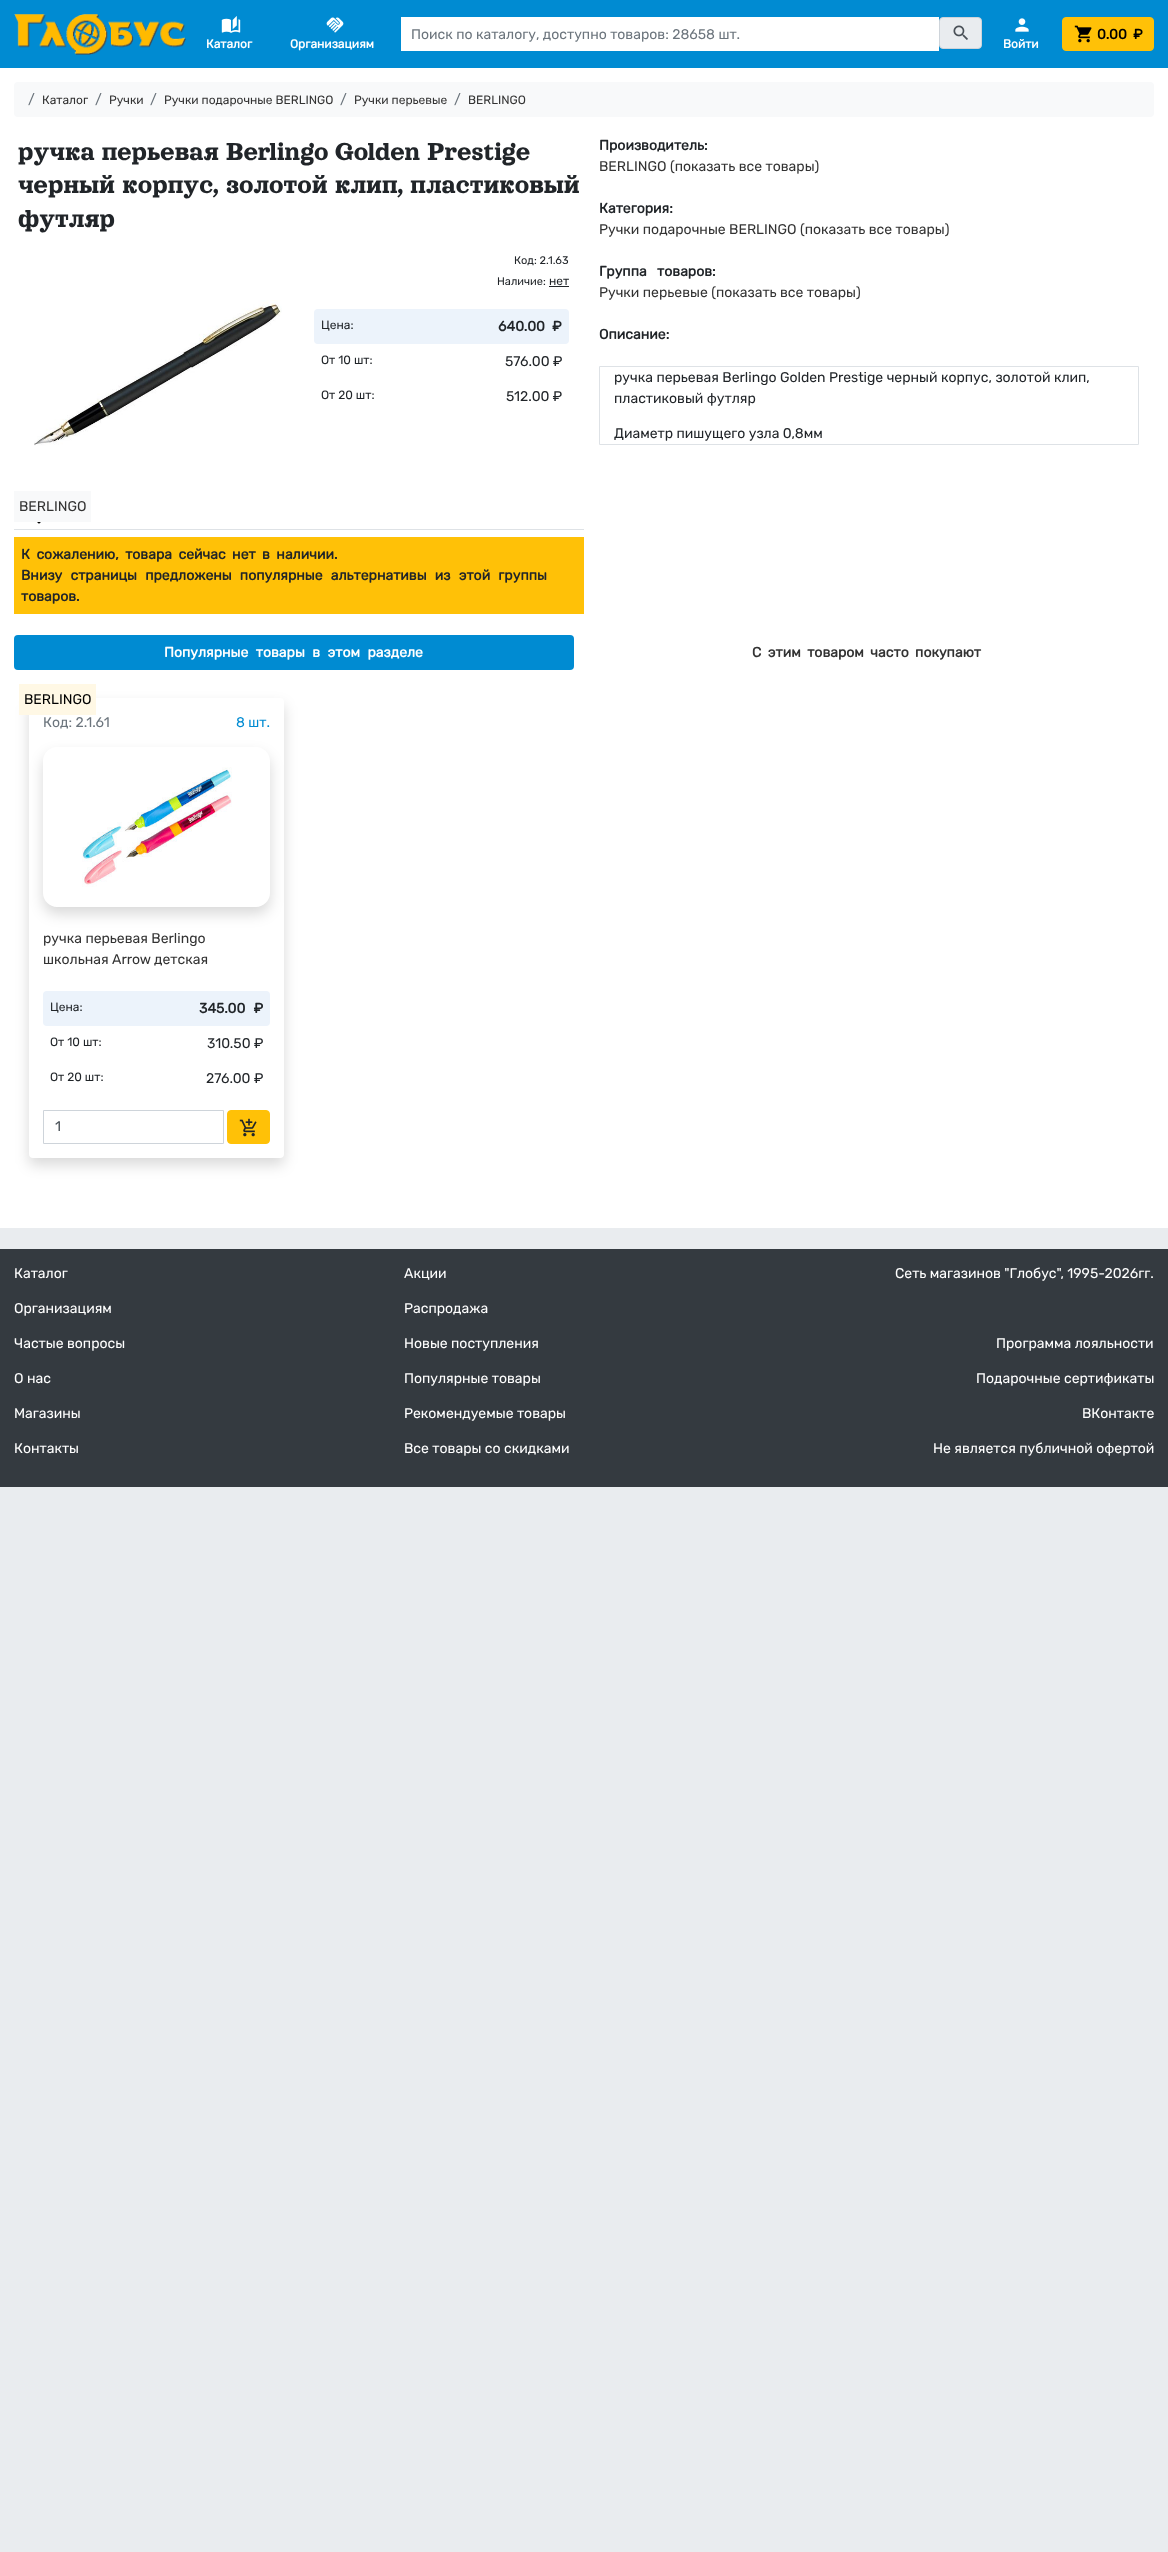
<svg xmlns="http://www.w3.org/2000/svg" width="1168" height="2552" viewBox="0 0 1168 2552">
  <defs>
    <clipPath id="clip1"><path d="M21 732H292V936H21ZM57 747H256C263.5 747 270 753.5 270 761V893C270 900.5 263.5 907 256 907H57C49.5 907 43 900.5 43 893V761C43 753.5 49.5 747 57 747Z" clip-rule="evenodd"/></clipPath>
  </defs>
  <rect width="100%" height="100%" fill="#e9ecef"/>
  <path d="M0 0h1168v68H0z" fill="#008bd2"/>
  <image x="14" y="14" width="172" height="41" href="img/1.png"/>
  <path d="M401 17h538v34H401z" fill="#fff"/>
  <rect x="939.5" y="17.5" width="42" height="31" rx="3.5" fill="#e9ecef" stroke="#ced4da"/>
  <image x="953" y="25" width="15" height="15" href="img/2.png"/>
  <rect x="1062.5" y="17.5" width="91" height="33" rx="3.5" fill="#ffc107" stroke="#ffc107"/>
  <image x="1074" y="25" width="18" height="18" href="img/3.png"/>
  <image x="221" y="16" width="20" height="17" href="img/4.png"/>
  <image x="326" y="17" width="18" height="16" href="img/5.png"/>
  <image x="1015" y="18" width="14" height="14" href="img/6.png"/>
  <path d="M0 68h1168v1160H0z" fill="#fff"/>
  <rect x="14" y="82" width="1140" height="35" rx="4" fill="#f8f9fa"/>
  <path d="M14 529h570v1H14z" fill="#dee2e6"/>
  <path d="M549 286h20v1H549z" fill="#212529"/>
  <rect x="314" y="309" width="255" height="35" rx="4" fill="#ecf3fb"/>
  <image x="34" y="300" width="248" height="146" href="img/7.png"/>
  <path d="M14 491h77v31H14z" fill="#f8f9fa"/>
  <image x="37" y="522" width="4" height="2" href="img/8.png"/>
  <path d="M14 537h570v77H14z" fill="#ffc107"/>
  <path d="M599.5 366.5h539v78H599.5z" fill="none" stroke="#dee2e6"/>
  <rect x="14" y="635" width="560" height="35" rx="4" fill="#008bd2"/>
  <rect x="29" y="705" width="255" height="460" rx="4" fill="#00000026" filter="blur(7px)"/>
  <rect x="29" y="698" width="255" height="460" rx="4" fill="#fff"/>
  <path d="M19 684h77v31H19z" fill="#fff8e5"/>
  <g clip-path="url(#clip1)">
    <rect x="43" y="754" width="227" height="160" rx="14" fill="#00000026" filter="blur(7px)"/>
  </g>
  <image x="82" y="767" width="150" height="120" href="img/9.png"/>
  <rect x="43" y="991" width="227" height="35" rx="4" fill="#ecf3fb"/>
  <path d="M43.5 1110.5h180v33H43.5z" fill="none" stroke="#ced4da"/>
  <rect x="227.5" y="1110.5" width="42" height="33" rx="3.5" fill="#ffc107" stroke="#ffc107"/>
  <image x="239" y="1118" width="18" height="19" href="img/10.png"/>
  <path d="M0 1249h1168v238H0z" fill="#343a40"/>
  <text x="411" y="39" font-family="Rubik" font-size="14" fill="#6c757d">Поиск по каталогу, доступно товаров: 28658 шт.</text>
  <text x="1097" y="39" word-spacing="3" font-family="Rubik" font-size="14" font-weight="bold" fill="#000">0.00 ₽</text>
  <g font-family="Rubik" font-size="12" font-weight="bold" fill="#fff">
    <text x="206" y="48">Каталог</text>
    <text x="290" y="48">Организациям</text>
    <text x="1003" y="48">Войти</text>
  </g>
  <text x="28" y="104" font-family="Rubik" font-size="14" fill="#6c757d">/</text>
  <text x="42" y="104" font-family="Rubik" font-size="12" fill="#333">Каталог</text>
  <text x="95" y="104" font-family="Rubik" font-size="14" fill="#6c757d">/</text>
  <text x="109" y="104" font-family="Rubik" font-size="12" fill="#333">Ручки</text>
  <text x="150" y="104" font-family="Rubik" font-size="14" fill="#6c757d">/</text>
  <text x="164" y="104" font-family="Rubik" font-size="12" fill="#333">Ручки подарочные BERLINGO</text>
  <text x="340" y="104" font-family="Rubik" font-size="14" fill="#6c757d">/</text>
  <text x="354" y="104" font-family="Rubik" font-size="12" fill="#333">Ручки перьевые</text>
  <text x="454" y="104" font-family="Rubik" font-size="14" fill="#6c757d">/</text>
  <text x="468" y="104" font-family="Rubik" font-size="12" fill="#333">BERLINGO</text>
  <g font-family="Orelega One" font-size="28" fill="#212529">
    <text x="18" y="160" word-spacing="-0.5">ручка перьевая Berlingo Golden Prestige</text>
    <text x="18" y="193">черный корпус, золотой клип, пластиковый</text>
    <text x="18" y="227">футляр</text>
  </g>
  <g font-family="Rubik" font-size="11" fill="#212529">
    <text x="514" y="264">Код: 2.1.63</text>
    <text x="497" y="285">Наличие:</text>
  </g>
  <g font-family="Rubik" font-size="12" fill="#212529">
    <text x="549" y="285">нет</text>
    <text x="321" y="329">Цена:</text>
  </g>
  <text x="498" y="331" word-spacing="4" font-family="Rubik" font-size="14" font-weight="bold" fill="#212529">640.00 ₽</text>
  <text x="321" y="364" font-family="Rubik" font-size="12" fill="#212529">От 10 шт:</text>
  <text x="505" y="366" font-family="Rubik" font-size="14" fill="#212529">576.00 ₽</text>
  <text x="321" y="399" font-family="Rubik" font-size="12" fill="#212529">От 20 шт:</text>
  <text x="506" y="401" font-family="Rubik" font-size="14" fill="#212529">512.00 ₽</text>
  <text x="19" y="511" font-family="Rubik" font-size="14" fill="#333">BERLINGO</text>
  <g font-family="Rubik" font-size="14" font-weight="bold" fill="#212529">
    <text x="21" y="559" word-spacing="3">К сожалению, товара сейчас нет в наличии.</text>
    <text x="21" y="580" word-spacing="4.75">Внизу страницы предложены популярные альтернативы из этой группы</text>
    <text x="21" y="601">товаров.</text>
    <text x="599" y="150">Производитель:</text>
  </g>
  <text x="599" y="171" font-family="Rubik" font-size="14" fill="#333">BERLINGO (показать все товары)</text>
  <text x="599" y="213" font-family="Rubik" font-size="14" font-weight="bold" fill="#212529">Категория:</text>
  <text x="599" y="234" font-family="Rubik" font-size="14" fill="#333">Ручки подарочные BERLINGO (показать все товары)</text>
  <text x="599" y="276" word-spacing="7" font-family="Rubik" font-size="14" font-weight="bold" fill="#212529">Группа товаров:</text>
  <text x="599" y="297" font-family="Rubik" font-size="14" fill="#333">Ручки перьевые (показать все товары)</text>
  <text x="599" y="339" font-family="Rubik" font-size="14" font-weight="bold" fill="#212529">Описание:</text>
  <g font-family="Rubik" font-size="14" fill="#212529">
    <text x="614" y="382">ручка перьевая Berlingo Golden Prestige черный корпус, золотой клип,</text>
    <text x="614" y="403">пластиковый футляр</text>
    <text x="614" y="438">Диаметр пишущего узла 0,8мм</text>
  </g>
  <text x="164" y="657" word-spacing="4" font-family="Rubik" font-size="14" font-weight="bold" fill="#fff">Популярные товары в этом разделе</text>
  <text x="752" y="657" word-spacing="3" font-family="Rubik" font-size="14" font-weight="bold" fill="#333">С этим товаром часто покупают</text>
  <text x="24" y="704" font-family="Rubik" font-size="14" fill="#000">BERLINGO</text>
  <text x="43" y="727" font-family="Rubik" font-size="14" fill="#6c757d">Код: 2.1.61</text>
  <text x="236" y="727" font-family="Rubik" font-size="14" fill="#008bd2">8 шт.</text>
  <g font-family="Rubik" font-size="14" fill="#333">
    <text x="43" y="943">ручка перьевая Berlingo</text>
    <text x="43" y="964">школьная Arrow детская</text>
  </g>
  <text x="50" y="1011" font-family="Rubik" font-size="12" fill="#212529">Цена:</text>
  <text x="199" y="1013" word-spacing="5" font-family="Rubik" font-size="14" font-weight="bold" fill="#212529">345.00 ₽</text>
  <text x="50" y="1046" font-family="Rubik" font-size="12" fill="#212529">От 10 шт:</text>
  <text x="207" y="1048" font-family="Rubik" font-size="14" fill="#212529">310.50 ₽</text>
  <text x="50" y="1081" font-family="Rubik" font-size="12" fill="#212529">От 20 шт:</text>
  <text x="206" y="1083" font-family="Rubik" font-size="14" fill="#212529">276.00 ₽</text>
  <text x="55" y="1131" font-family="Rubik" font-size="14" fill="#495057">1</text>
  <g font-family="Rubik" font-size="14" fill="#fff">
    <text x="14" y="1278">Каталог</text>
    <text x="14" y="1313">Организациям</text>
    <text x="14" y="1348">Частые вопросы</text>
    <text x="14" y="1383">О нас</text>
    <text x="14" y="1418">Магазины</text>
    <text x="14" y="1453">Контакты</text>
    <text x="404" y="1278">Акции</text>
    <text x="404" y="1313">Распродажа</text>
    <text x="404" y="1348">Новые поступления</text>
    <text x="404" y="1383">Популярные товары</text>
    <text x="404" y="1418">Рекомендуемые товары</text>
    <text x="404" y="1453">Все товары со скидками</text>
    <text x="895" y="1278">Сеть магазинов "Глобус", 1995-2026гг.</text>
    <text x="996" y="1348">Программа лояльности</text>
    <text x="976" y="1383">Подарочные сертификаты</text>
    <text x="1082" y="1418">ВКонтакте</text>
    <text x="933" y="1453">Не является публичной офертой</text>
  </g>
</svg>
